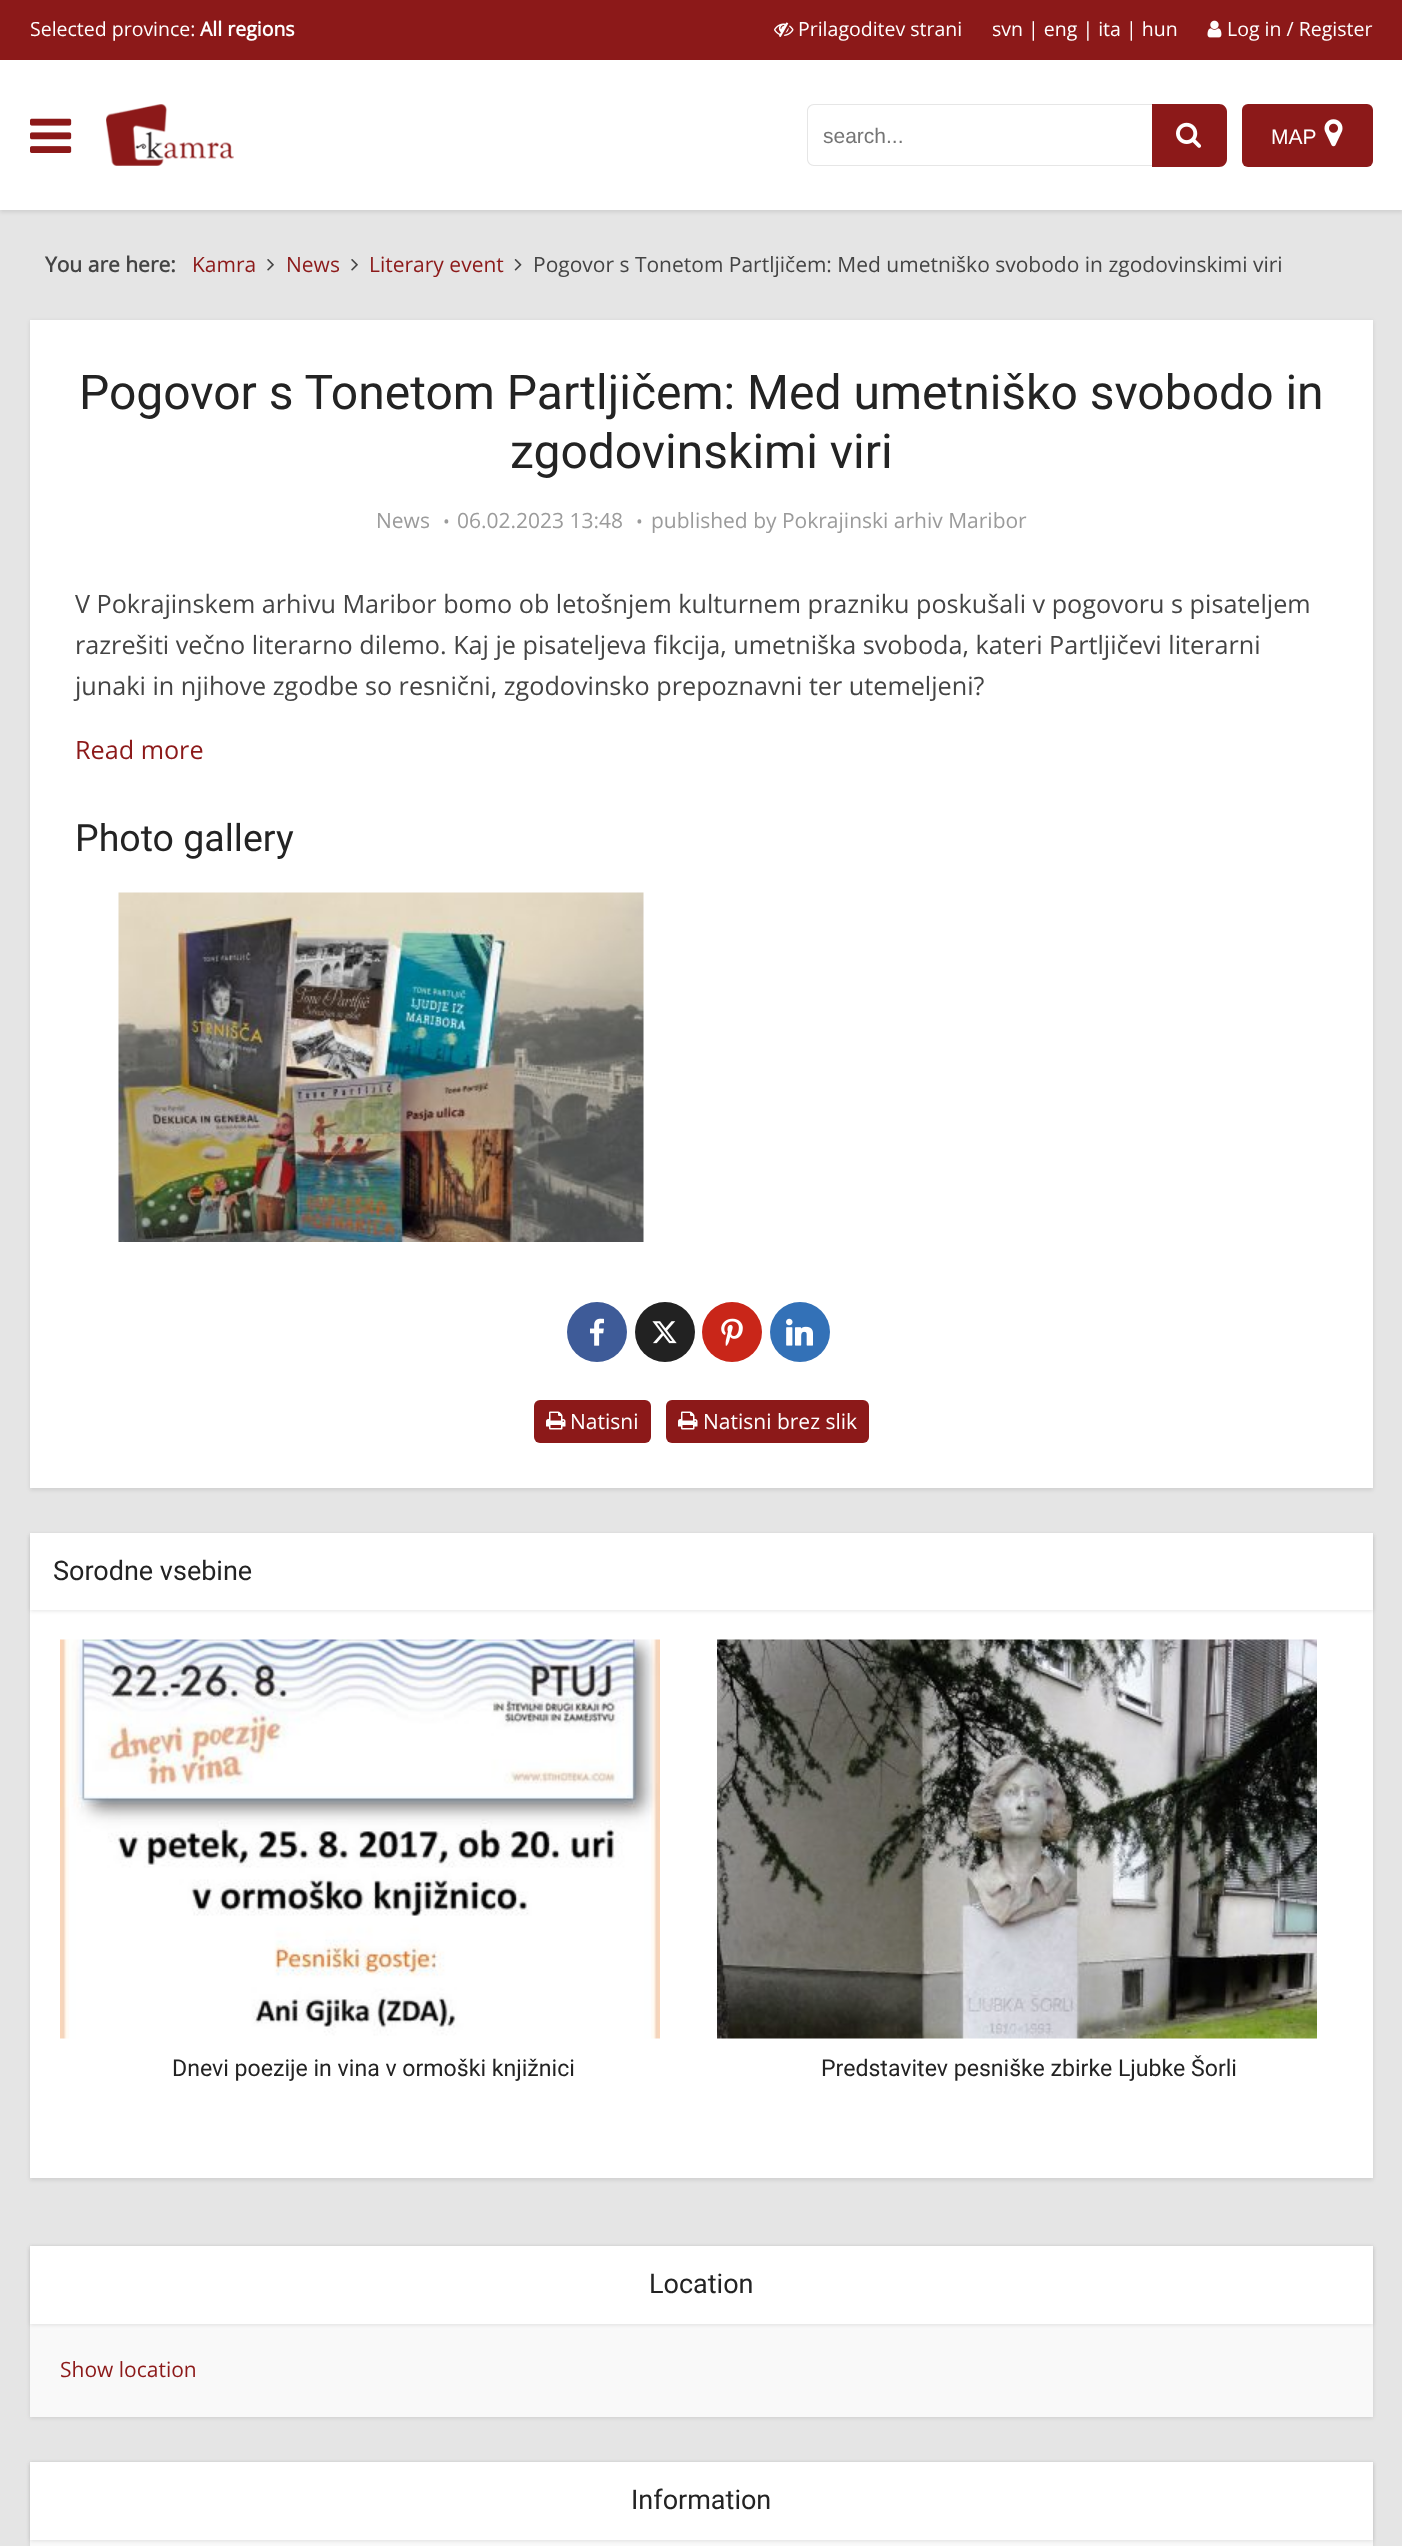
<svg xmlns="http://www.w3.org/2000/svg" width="1402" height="2546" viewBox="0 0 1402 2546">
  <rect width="100%" height="100%" fill="#e5e5e5"/>
  <path d="M0 2h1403v210H0z" fill="#0000001a" filter="blur(2px)"/>
  <path d="M0 60h1402v150H0z" fill="#fff"/>
  <path d="M0 0h1402v60H0z" fill="#8c1919"/>
  <image x="774" y="22" width="20" height="15" href="img/1.png"/>
  <image x="1207" y="20" width="15" height="18" href="img/2.png"/>
  <image x="30" y="118" width="42" height="35" href="img/3.png"/>
  <image x="106" y="104" width="128" height="62" href="img/4.png"/>
  <path d="M814 104H1152V166H814C810 166 807 163 807 159V111C807 107 810 104 814 104ZM814 105H1152V165H814C811 165 808 162 808 159V111C808 108 811 105 814 105Z" fill="#e6e6e6" fill-rule="evenodd"/>
  <path d="M1152 104H1219C1223.5 104 1227 107.5 1227 112V159C1227 163.5 1223.5 167 1219 167H1152Z" fill="#8c1919"/>
  <image x="1176" y="122" width="25" height="26" href="img/5.png"/>
  <rect x="1242" y="104" width="131" height="63" rx="6" fill="#8c1919"/>
  <image x="1324" y="119" width="19" height="28" href="img/6.png"/>
  <image x="267" y="259" width="7" height="12" href="img/7.png"/>
  <image x="351" y="259" width="7" height="12" href="img/7.png"/>
  <image x="514" y="259" width="8" height="12" href="img/8.png"/>
  <path d="M30 321h1343v1169H30z" fill="#0000001a" filter="blur(2px)"/>
  <path d="M30 320h1343v1168H30z" fill="#fff"/>
  <image x="118" y="892" width="526" height="350" href="img/9.png"/>
  <circle cx="597" cy="1332" r="30" fill="#3e5b98"/>
  <image x="590" y="1318" width="14" height="28" href="img/10.png"/>
  <circle cx="665" cy="1332" r="30" fill="#222"/>
  <image x="652" y="1321" width="25" height="23" href="img/11.png"/>
  <circle cx="732" cy="1332" r="30" fill="#c92619"/>
  <image x="721" y="1318" width="22" height="28" href="img/12.png"/>
  <circle cx="800" cy="1332" r="30" fill="#3371b7"/>
  <image x="786" y="1318" width="27" height="28" href="img/13.png"/>
  <rect x="534" y="1400" width="117" height="43" rx="6" fill="#8c1919"/>
  <image x="546" y="1411" width="20" height="19" href="img/14.png"/>
  <rect x="666" y="1400" width="203" height="43" rx="6" fill="#8c1919"/>
  <image x="678" y="1411" width="20" height="19" href="img/14.png"/>
  <path d="M30 1535h1343v645H30z" fill="#0000001a" filter="blur(2px)"/>
  <path d="M30 1610h1343v568H30z" fill="#fff"/>
  <path d="M30 1535h1343v76H30z" fill="#0000001a" filter="blur(2px)"/>
  <path d="M30 1533h1343v77H30z" fill="#fff"/>
  <image x="60" y="1639" width="600" height="400" href="img/15.png"/>
  <image x="717" y="1639" width="600" height="400" href="img/16.png"/>
  <path d="M30 2247h1343v171H30z" fill="#0000001a" filter="blur(2px)"/>
  <path d="M30 2324h1343v93H30z" fill="#f9f9f9"/>
  <path d="M30 2247h1343v78H30z" fill="#0000001a" filter="blur(2px)"/>
  <path d="M30 2246h1343v78H30z" fill="#fff"/>
  <path d="M30 2463h1343v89H30z" fill="#0000001a" filter="blur(2px)"/>
  <path d="M30 2540h1343v6H30z" fill="#f9f9f9"/>
  <path d="M30 2463h1343v78H30z" fill="#0000001a" filter="blur(2px)"/>
  <path d="M30 2462h1343v78H30z" fill="#fff"/>
  <text x="30" y="36" font-family="Open Sans" font-size="19.5" fill="#fff">Selected province:</text>
  <text x="200" y="36" font-family="Open Sans" font-size="19.5" font-weight="bold" fill="#fff">All regions</text>
  <g font-family="Open Sans" font-size="19.5" fill="#fff">
    <text x="798" y="36">Prilagoditev strani</text>
    <text x="992" y="36">svn | eng | ita | hun</text>
    <text x="1227" y="36">Log in / Register</text>
  </g>
  <text x="823" y="143" font-family="Liberation Sans" font-size="21" fill="#757575">search...</text>
  <text x="1271" y="144" font-family="Liberation Sans" font-size="21" fill="#fff">MAP</text>
  <text x="45" y="272" font-family="Open Sans" font-size="21" font-weight="bold" fill="#444">You are here:</text>
  <g font-family="Open Sans" font-size="21" fill="#8c1919">
    <text x="192" y="272">Kamra</text>
    <text x="286" y="272">News</text>
    <text x="369" y="272">Literary event</text>
  </g>
  <text x="533" y="272" font-family="Open Sans" font-size="21" fill="#444">Pogovor s Tonetom Partljičem: Med umetniško svobodo in zgodovinskimi viri</text>
  <g font-family="Roboto" font-size="48" fill="#232323">
    <text x="79" y="409">Pogovor s Tonetom Partljičem: Med umetniško svobodo in</text>
    <text x="510" y="468">zgodovinskimi viri</text>
  </g>
  <text x="376" y="528" font-family="Open Sans" font-size="21" fill="#9b9b9b">News</text>
  <text x="443" y="528" font-family="Open Sans" font-size="18" fill="#9b9b9b">•</text>
  <text x="457" y="528" font-family="Open Sans" font-size="21" fill="#9b9b9b">06.02.2023 13:48</text>
  <text x="636" y="528" font-family="Open Sans" font-size="18" fill="#9b9b9b">•</text>
  <text x="651" y="528" font-family="Open Sans" font-size="21" fill="#9b9b9b">published by Pokrajinski arhiv Maribor</text>
  <g font-family="Open Sans" font-size="25.2" fill="#444">
    <text x="75" y="613">V Pokrajinskem arhivu Maribor bomo ob letošnjem kulturnem prazniku poskušali v pogovoru s pisateljem</text>
    <text x="75" y="654">razrešiti večno literarno dilemo. Kaj je pisateljeva fikcija, umetniška svoboda, kateri Partljičevi literarni</text>
    <text x="75" y="695">junaki in njihove zgodbe so resnični, zgodovinsko prepoznavni ter utemeljeni?</text>
  </g>
  <text x="75" y="759" font-family="Open Sans" font-size="25.2" fill="#8c1919">Read more</text>
  <text x="75" y="851" font-family="Roboto" font-size="37.5" fill="#232323">Photo gallery</text>
  <g font-family="Open Sans" font-size="21" fill="#fff">
    <text x="570" y="1429">Natisni</text>
    <text x="703" y="1429">Natisni brez slik</text>
  </g>
  <text x="53" y="1580" font-family="Roboto" font-size="27" fill="#232323">Sorodne vsebine</text>
  <g font-family="Roboto" font-size="23.1" fill="#232323">
    <text x="172" y="2076">Dnevi poezije in vina v ormoški knjižnici</text>
    <text x="821" y="2076">Predstavitev pesniške zbirke Ljubke Šorli</text>
  </g>
  <text x="649" y="2293" font-family="Roboto" font-size="27" fill="#232323">Location</text>
  <text x="60" y="2377" font-family="Open Sans" font-size="21" fill="#8c1919">Show location</text>
  <text x="631" y="2509" font-family="Roboto" font-size="27" fill="#232323">Information</text>
</svg>
